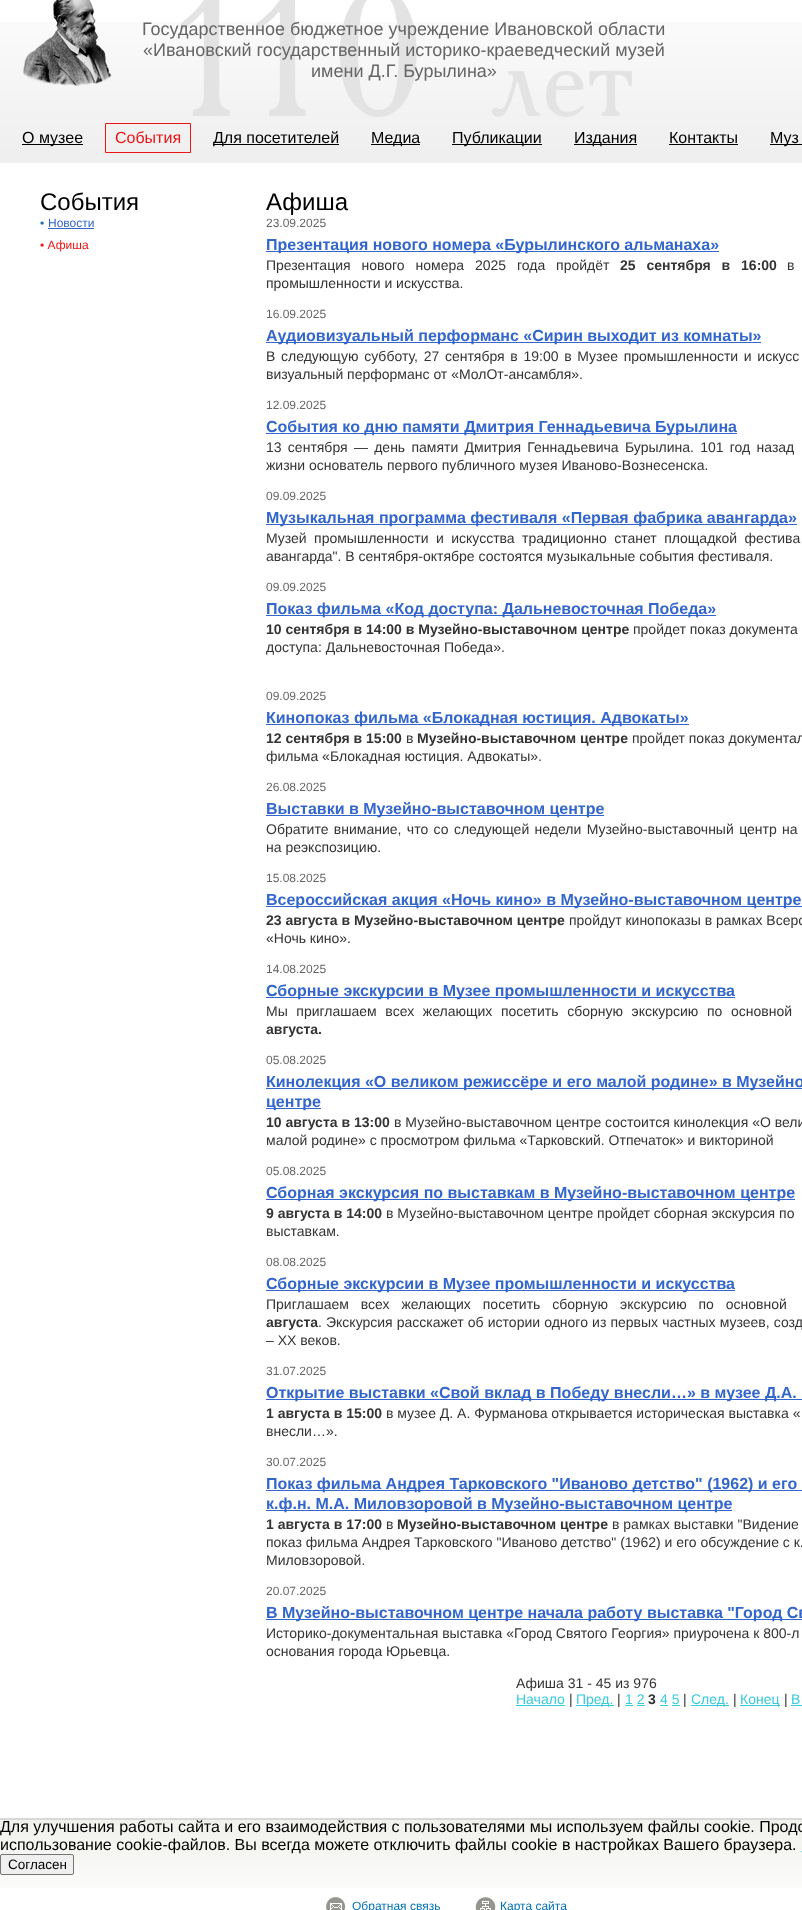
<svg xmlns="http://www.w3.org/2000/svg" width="802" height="1910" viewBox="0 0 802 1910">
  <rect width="100%" height="100%" fill="#fff"/>
  <image x="0" y="22" width="802" height="141" href="img/1.png"/>
  <image x="180" y="0" width="452" height="117" href="img/2.png"/>
  <image x="23" y="0" width="89" height="87" href="img/3.png"/>
  <path d="M22 144h61v1H22z" fill="#000"/>
  <path d="M105.5 123.5h85v29H105.5z" fill="none" stroke="#ea1514"/>
  <path d="M213 144h126v1H213z" fill="#000"/>
  <path d="M371 144h49v1H371z" fill="#000"/>
  <path d="M452 144h90v1H452z" fill="#000"/>
  <path d="M574 144h63v1H574z" fill="#000"/>
  <path d="M669 144h69v1H669z" fill="#000"/>
  <path d="M770 144h32v1H770z" fill="#000"/>
  <path d="M48 228h46v1H48z" fill="#36c"/>
  <path d="M266 251h453v1H266z" fill="#36c"/>
  <path d="M266 342h495v1H266z" fill="#36c"/>
  <path d="M266 433h471v1H266z" fill="#36c"/>
  <path d="M266 524h531v1H266z" fill="#36c"/>
  <path d="M266 615h450v1H266z" fill="#36c"/>
  <path d="M266 724h423v1H266z" fill="#36c"/>
  <path d="M266 815h338v1H266z" fill="#36c"/>
  <path d="M266 906h536v1H266z" fill="#36c"/>
  <path d="M266 997h469v1H266z" fill="#36c"/>
  <path d="M266 1088h536v1H266z" fill="#36c"/>
  <path d="M266 1108h55v1H266z" fill="#36c"/>
  <path d="M266 1199h529v1H266z" fill="#36c"/>
  <path d="M266 1290h469v1H266z" fill="#36c"/>
  <path d="M266 1399h536v1H266z" fill="#36c"/>
  <path d="M266 1490h536v1H266z" fill="#36c"/>
  <path d="M266 1510h466v1H266z" fill="#36c"/>
  <path d="M266 1619h536v1H266z" fill="#36c"/>
  <path d="M516 1705h49v1H516z" fill="#37cbdc"/>
  <path d="M576 1705h38v1H576z" fill="#37cbdc"/>
  <path d="M625 1705h8v1H625z" fill="#37cbdc"/>
  <path d="M637 1705h8v1H637z" fill="#37cbdc"/>
  <path d="M660 1705h8v1H660z" fill="#37cbdc"/>
  <path d="M672 1705h8v1H672z" fill="#37cbdc"/>
  <path d="M691 1705h38v1H691z" fill="#37cbdc"/>
  <path d="M740 1705h40v1H740z" fill="#37cbdc"/>
  <path d="M791 1705h11v1H791z" fill="#37cbdc"/>
  <image x="0" y="1818" width="802" height="70" href="img/4.png"/>
  <path d="M801 1851h1v1H801z" fill="#37cbdc"/>
  <rect x="0.5" y="1854.5" width="73" height="20" rx="1.5" fill="#efefef" stroke="#767676"/>
  <image x="326" y="1897" width="20" height="13" href="img/5.png"/>
  <image x="475" y="1897" width="21" height="13" href="img/6.png"/>
  <g font-family="Liberation Sans" font-size="18" fill="#656565">
    <text x="142" y="35">Государственное бюджетное учреждение Ивановской области</text>
    <text x="143" y="56">«Ивановский государственный историко-краеведческий музей</text>
    <text x="311" y="77">имени Д.Г. Бурылина»</text>
  </g>
  <text x="22" y="143" font-family="Liberation Sans" font-size="16" fill="#000">О музее</text>
  <text x="115" y="143" font-family="Liberation Sans" font-size="16" fill="#ea1514">События</text>
  <g font-family="Liberation Sans" font-size="16" fill="#000">
    <text x="213" y="143">Для посетителей</text>
    <text x="371" y="143">Медиа</text>
    <text x="452" y="143">Публикации</text>
    <text x="574" y="143">Издания</text>
    <text x="669" y="143">Контакты</text>
    <text x="770" y="143">Муз</text>
  </g>
  <text x="40" y="210" font-family="Liberation Sans" font-size="24" fill="#000">События</text>
  <text x="40" y="227" font-family="Liberation Sans" font-size="12" fill="#1c70b3">•</text>
  <text x="48" y="227" font-family="Liberation Sans" font-size="12" fill="#36c">Новости</text>
  <text x="40" y="249" font-family="Liberation Sans" font-size="12" fill="#ea1514">• Афиша</text>
  <text x="266" y="210" font-family="Liberation Sans" font-size="24" fill="#000">Афиша</text>
  <text x="266" y="227" font-family="Liberation Sans" font-size="12" fill="#656565">23.09.2025</text>
  <text x="266" y="250" font-family="Liberation Sans" font-size="16" font-weight="bold" fill="#36c">Презентация нового номера «Бурылинского альманаха»</text>
  <text x="266" y="270" word-spacing="7" font-family="Liberation Sans" font-size="14" fill="#333">Презентация нового номера 2025 года пройдëт</text>
  <text x="620" y="270" word-spacing="7" font-family="Liberation Sans" font-size="14" font-weight="bold" fill="#333">25 сентября в 16:00</text>
  <g font-family="Liberation Sans" font-size="14" fill="#333">
    <text x="787" y="270" word-spacing="7">в</text>
    <text x="266" y="288">промышленности и искусства.</text>
  </g>
  <text x="266" y="318" font-family="Liberation Sans" font-size="12" fill="#656565">16.09.2025</text>
  <text x="266" y="341" font-family="Liberation Sans" font-size="16" font-weight="bold" fill="#36c">Аудиовизуальный перформанс «Сирин выходит из комнаты»</text>
  <g font-family="Liberation Sans" font-size="14" fill="#333">
    <text x="266" y="361" word-spacing="1.8">В следующую субботу, 27 сентября в 19:00 в Музее промышленности и искусс</text>
    <text x="266" y="379">визуальный перформанс от «МолОт-ансамбля».</text>
  </g>
  <text x="266" y="409" font-family="Liberation Sans" font-size="12" fill="#656565">12.09.2025</text>
  <text x="266" y="432" font-family="Liberation Sans" font-size="16" font-weight="bold" fill="#36c">События ко дню памяти Дмитрия Геннадьевича Бурылина</text>
  <g font-family="Liberation Sans" font-size="14" fill="#333">
    <text x="266" y="452" word-spacing="2.4">13 сентября — день памяти Дмитрия Геннадьевича Бурылина. 101 год назад</text>
    <text x="266" y="470">жизни основатель первого публичного музея Иваново-Вознесенска.</text>
  </g>
  <text x="266" y="500" font-family="Liberation Sans" font-size="12" fill="#656565">09.09.2025</text>
  <text x="266" y="523" font-family="Liberation Sans" font-size="16" font-weight="bold" fill="#36c">Музыкальная программа фестиваля «Первая фабрика авангарда»</text>
  <g font-family="Liberation Sans" font-size="14" fill="#333">
    <text x="266" y="543" word-spacing="3.5">Музей промышленности и искусства традиционно станет площадкой фестива</text>
    <text x="266" y="561">авангарда". В сентября-октябре состоятся музыкальные события фестиваля.</text>
  </g>
  <text x="266" y="591" font-family="Liberation Sans" font-size="12" fill="#656565">09.09.2025</text>
  <text x="266" y="614" font-family="Liberation Sans" font-size="16" font-weight="bold" fill="#36c">Показ фильма «Код доступа: Дальневосточная Победа»</text>
  <text x="266" y="634" font-family="Liberation Sans" font-size="14" font-weight="bold" fill="#333">10 сентября в 14:00 в Музейно-выставочном центре</text>
  <g font-family="Liberation Sans" font-size="14" fill="#333">
    <text x="633" y="634">пройдет показ документа</text>
    <text x="266" y="652">доступа: Дальневосточная Победа».</text>
  </g>
  <text x="266" y="700" font-family="Liberation Sans" font-size="12" fill="#656565">09.09.2025</text>
  <text x="266" y="723" font-family="Liberation Sans" font-size="16" font-weight="bold" fill="#36c">Кинопоказ фильма «Блокадная юстиция. Адвокаты»</text>
  <text x="266" y="743" font-family="Liberation Sans" font-size="14" font-weight="bold" fill="#333">12 сентября в 15:00</text>
  <text x="406" y="743" font-family="Liberation Sans" font-size="14" fill="#333">в</text>
  <text x="417" y="743" font-family="Liberation Sans" font-size="14" font-weight="bold" fill="#333">Музейно-выставочном центре</text>
  <g font-family="Liberation Sans" font-size="14" fill="#333">
    <text x="632" y="743">пройдет показ документал</text>
    <text x="266" y="761">фильма «Блокадная юстиция. Адвокаты».</text>
  </g>
  <text x="266" y="791" font-family="Liberation Sans" font-size="12" fill="#656565">26.08.2025</text>
  <text x="266" y="814" font-family="Liberation Sans" font-size="16" font-weight="bold" fill="#36c">Выставки в Музейно-выставочном центре</text>
  <g font-family="Liberation Sans" font-size="14" fill="#333">
    <text x="266" y="834" word-spacing="1.5">Обратите внимание, что со следующей недели Музейно-выставочный центр на</text>
    <text x="266" y="852">на реэкспозицию.</text>
  </g>
  <text x="266" y="882" font-family="Liberation Sans" font-size="12" fill="#656565">15.08.2025</text>
  <text x="266" y="905" font-family="Liberation Sans" font-size="16" font-weight="bold" fill="#36c">Всероссийская акция «Ночь кино» в Музейно-выставочном центре</text>
  <text x="266" y="925" font-family="Liberation Sans" font-size="14" font-weight="bold" fill="#333">23 августа в Музейно-выставочном центре</text>
  <g font-family="Liberation Sans" font-size="14" fill="#333">
    <text x="569" y="925">пройдут кинопоказы в рамках Всеро</text>
    <text x="266" y="943">«Ночь кино».</text>
  </g>
  <text x="266" y="973" font-family="Liberation Sans" font-size="12" fill="#656565">14.08.2025</text>
  <text x="266" y="996" font-family="Liberation Sans" font-size="16" font-weight="bold" fill="#36c">Сборные экскурсии в Музее промышленности и искусства</text>
  <text x="266" y="1016" word-spacing="4.75" font-family="Liberation Sans" font-size="14" fill="#333">Мы приглашаем всех желающих посетить сборную экскурсию по основной</text>
  <text x="266" y="1034" font-family="Liberation Sans" font-size="14" font-weight="bold" fill="#333">августа.</text>
  <text x="266" y="1064" font-family="Liberation Sans" font-size="12" fill="#656565">05.08.2025</text>
  <g font-family="Liberation Sans" font-size="16" font-weight="bold" fill="#36c">
    <text x="266" y="1087">Кинолекция «О великом режиссёре и его малой родине» в Музейно</text>
    <text x="266" y="1107">центре</text>
  </g>
  <text x="266" y="1127" font-family="Liberation Sans" font-size="14" font-weight="bold" fill="#333">10 августа в 13:00</text>
  <g font-family="Liberation Sans" font-size="14" fill="#333">
    <text x="394" y="1127">в Музейно-выставочном центре состоится кинолекция «О вели</text>
    <text x="266" y="1145">малой родине» с просмотром фильма «Тарковский. Отпечаток» и викториной</text>
  </g>
  <text x="266" y="1175" font-family="Liberation Sans" font-size="12" fill="#656565">05.08.2025</text>
  <text x="266" y="1198" font-family="Liberation Sans" font-size="16" font-weight="bold" fill="#36c">Сборная экскурсия по выставкам в Музейно-выставочном центре</text>
  <text x="266" y="1218" font-family="Liberation Sans" font-size="14" font-weight="bold" fill="#333">9 августа в 14:00</text>
  <g font-family="Liberation Sans" font-size="14" fill="#333">
    <text x="386" y="1218">в Музейно-выставочном центре пройдет сборная экскурсия по</text>
    <text x="266" y="1236">выставкам.</text>
  </g>
  <text x="266" y="1266" font-family="Liberation Sans" font-size="12" fill="#656565">08.08.2025</text>
  <text x="266" y="1289" font-family="Liberation Sans" font-size="16" font-weight="bold" fill="#36c">Сборные экскурсии в Музее промышленности и искусства</text>
  <text x="266" y="1309" word-spacing="8" font-family="Liberation Sans" font-size="14" fill="#333">Приглашаем всех желающих посетить сборную экскурсию по основной</text>
  <text x="266" y="1327" font-family="Liberation Sans" font-size="14" font-weight="bold" fill="#333">августа</text>
  <g font-family="Liberation Sans" font-size="14" fill="#333">
    <text x="318" y="1327">.</text>
    <text x="326" y="1327" word-spacing="0.25">Экскурсия расскажет об истории одного из первых частных музеев, созд</text>
    <text x="266" y="1345">– XX веков.</text>
  </g>
  <text x="266" y="1375" font-family="Liberation Sans" font-size="12" fill="#656565">31.07.2025</text>
  <text x="266" y="1398" font-family="Liberation Sans" font-size="16" font-weight="bold" fill="#36c">Открытие выставки «Свой вклад в Победу внесли…» в музее Д.А.</text>
  <text x="266" y="1418" font-family="Liberation Sans" font-size="14" font-weight="bold" fill="#333">1 августа в 15:00</text>
  <g font-family="Liberation Sans" font-size="14" fill="#333">
    <text x="386" y="1418">в музее Д. А. Фурманова открывается историческая выставка «</text>
    <text x="266" y="1436">внесли…».</text>
  </g>
  <text x="266" y="1466" font-family="Liberation Sans" font-size="12" fill="#656565">30.07.2025</text>
  <g font-family="Liberation Sans" font-size="16" font-weight="bold" fill="#36c">
    <text x="266" y="1489">Показ фильма Андрея Тарковского "Иваново детство" (1962) и его</text>
    <text x="266" y="1509">к.ф.н. М.А. Миловзоровой в Музейно-выставочном центре</text>
  </g>
  <text x="266" y="1529" font-family="Liberation Sans" font-size="14" font-weight="bold" fill="#333">1 августа в 17:00</text>
  <text x="386" y="1529" font-family="Liberation Sans" font-size="14" fill="#333">в</text>
  <text x="397" y="1529" font-family="Liberation Sans" font-size="14" font-weight="bold" fill="#333">Музейно-выставочном центре</text>
  <g font-family="Liberation Sans" font-size="14" fill="#333">
    <text x="612" y="1529">в рамках выставки "Видение</text>
    <text x="266" y="1547">показ фильма Андрея Тарковского "Иваново детство" (1962) и его обсуждение с к.</text>
    <text x="266" y="1565">Миловзоровой.</text>
  </g>
  <text x="266" y="1595" font-family="Liberation Sans" font-size="12" fill="#656565">20.07.2025</text>
  <text x="266" y="1618" font-family="Liberation Sans" font-size="16" font-weight="bold" fill="#36c">В Музейно-выставочном центре начала работу выставка "Город Св</text>
  <g font-family="Liberation Sans" font-size="14" fill="#333">
    <text x="266" y="1638">Историко-документальная выставка «Город Святого Георгия» приурочена к 800-л</text>
    <text x="266" y="1656">основания города Юрьевца.</text>
    <text x="516" y="1688">Афиша 31 - 45 из 976</text>
  </g>
  <text x="516" y="1704" font-family="Liberation Sans" font-size="14" fill="#37cbdc">Начало</text>
  <text x="569" y="1704" font-family="Liberation Sans" font-size="14" fill="#333">|</text>
  <text x="576" y="1704" font-family="Liberation Sans" font-size="14" fill="#37cbdc">Пред.</text>
  <text x="617" y="1704" font-family="Liberation Sans" font-size="14" fill="#333">|</text>
  <text x="625" y="1704" font-family="Liberation Sans" font-size="14" fill="#37cbdc">1 2</text>
  <text x="648" y="1704" font-family="Liberation Sans" font-size="14" font-weight="bold" fill="#333">3</text>
  <text x="660" y="1704" font-family="Liberation Sans" font-size="14" fill="#37cbdc">4 5</text>
  <text x="683" y="1704" font-family="Liberation Sans" font-size="14" fill="#333">|</text>
  <text x="691" y="1704" font-family="Liberation Sans" font-size="14" fill="#37cbdc">След.</text>
  <text x="733" y="1704" font-family="Liberation Sans" font-size="14" fill="#333">|</text>
  <text x="740" y="1704" font-family="Liberation Sans" font-size="14" fill="#37cbdc">Конец</text>
  <text x="784" y="1704" font-family="Liberation Sans" font-size="14" fill="#333">|</text>
  <text x="791" y="1704" font-family="Liberation Sans" font-size="14" fill="#37cbdc">В</text>
  <g font-family="Liberation Sans" font-size="16" fill="#000">
    <text x="0" y="1832">Для улучшения работы сайта и его взаимодействия с пользователями мы используем файлы cookie. Продо</text>
    <text x="0" y="1850">использование cookie-файлов. Вы всегда можете отключить файлы cookie в настройках Вашего браузера.</text>
  </g>
  <text x="8" y="1869" font-family="Liberation Sans" font-size="13.5" fill="#000">Согласен</text>
  <g font-family="Liberation Sans" font-size="12" fill="#0071b6">
    <text x="352" y="1910">Обратная связь</text>
    <text x="500" y="1910">Карта сайта</text>
  </g>
</svg>
